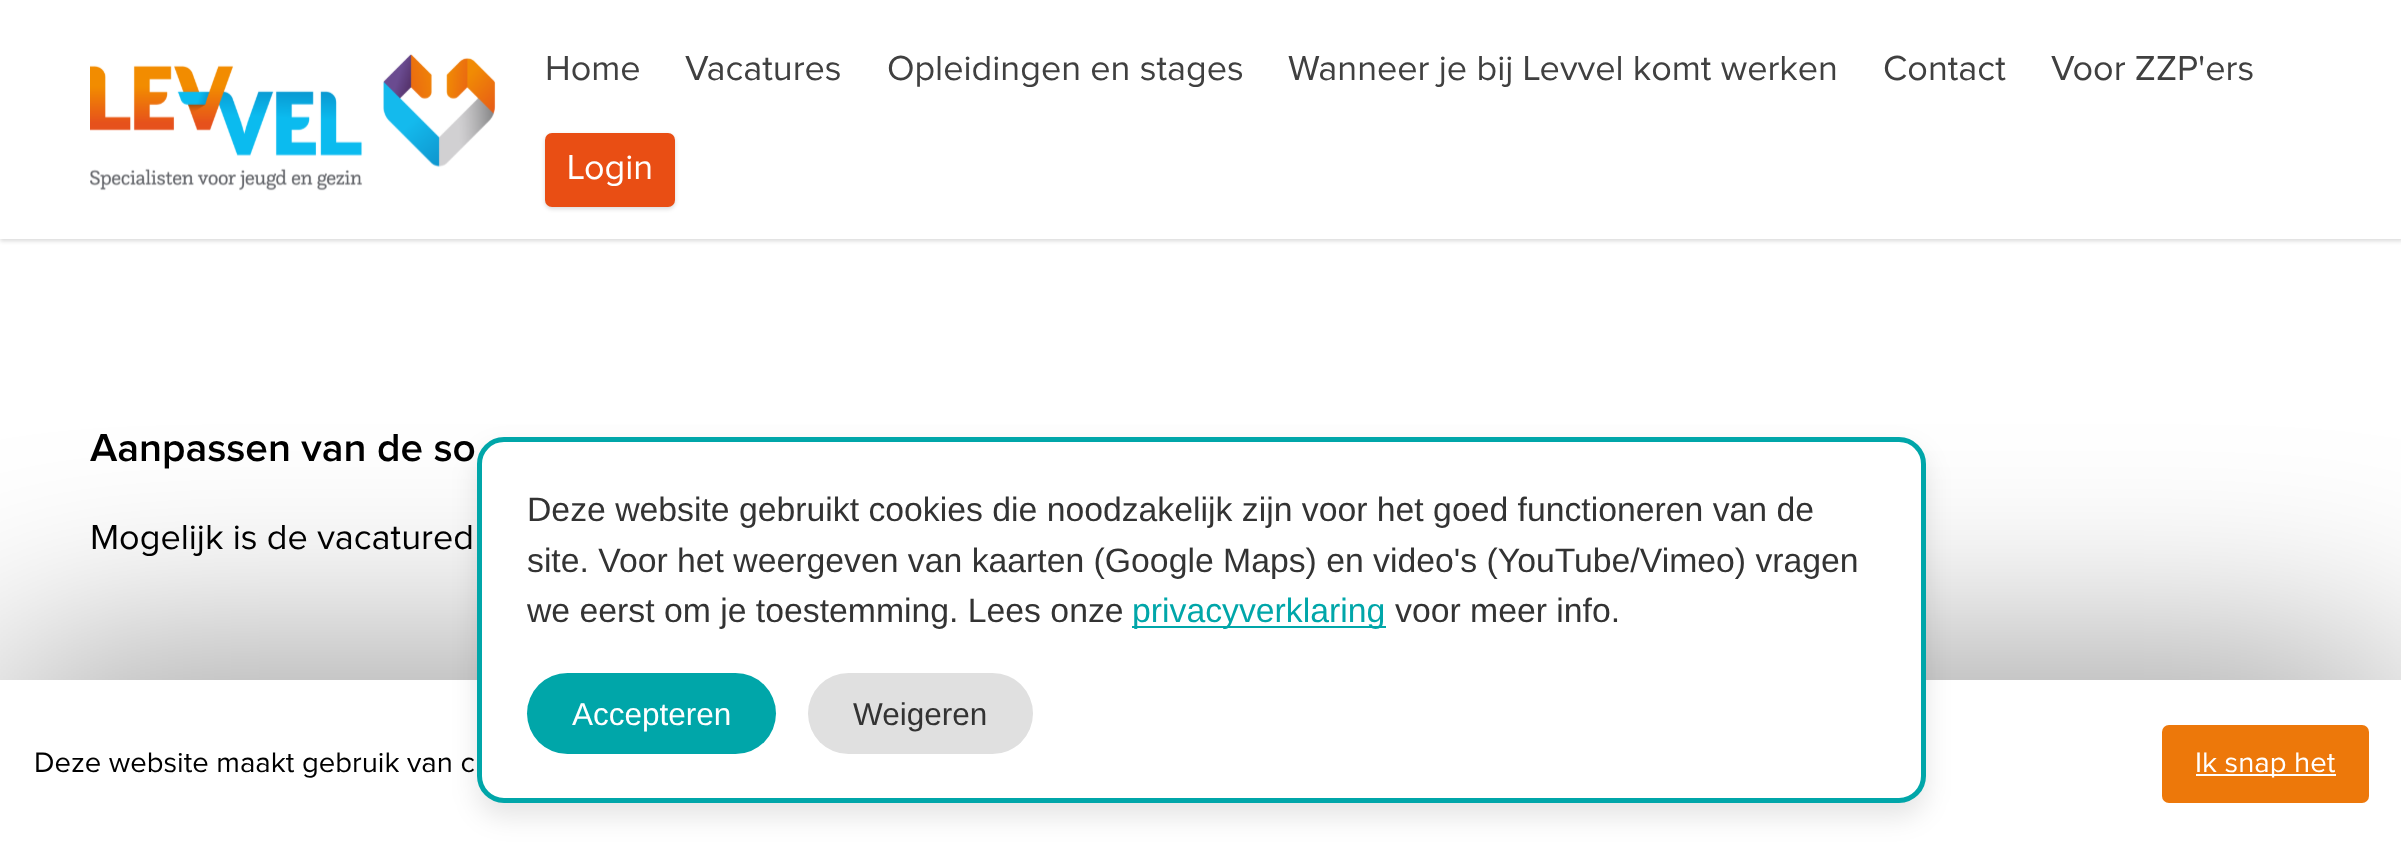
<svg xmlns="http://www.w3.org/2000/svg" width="2401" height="847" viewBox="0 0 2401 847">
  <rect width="100%" height="100%" fill="#fff"/>
  <path d="M0 2h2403v239H0z" fill="#00000026" filter="blur(2px)"/>
  <path d="M0 0h2401v239H0z" fill="#fff"/>
  <image x="90" y="54" width="406" height="137" href="img/1.png"/>
  <rect x="545" y="135" width="130" height="74" rx="7" fill="#00000026" filter="blur(2px)"/>
  <rect x="545" y="133" width="130" height="74" rx="7" fill="#e94e14"/>
  <path d="M0 680h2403v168H0z" fill="#00000080" filter="blur(112.5px)"/>
  <path d="M0 680h2401v167H0z" fill="#fff"/>
  <rect x="2162" y="725" width="207" height="78" rx="7" fill="#ed780a"/>
  <path d="M2196 774h140v2H2196z" fill="#fff"/>
  <rect x="477" y="450" width="1449" height="367" rx="27" fill="#0000001a" filter="blur(13.5px)"/>
  <rect x="479.5" y="439.5" width="1444" height="361" rx="24.5" fill="#fff" stroke="#00a6a9" stroke-width="5"/>
  <path d="M1132 626h254v2H1132z" fill="#00a6a9"/>
  <rect x="527" y="673" width="249" height="81" rx="40.5" fill="#00a6a9"/>
  <rect x="808" y="673" width="225" height="81" rx="40.5" fill="#e0e0e0"/>
  <g font-family="Proxima Nova" font-size="36" fill="#404040">
    <text x="545" y="80">Home</text>
    <text x="685" y="80">Vacatures</text>
    <text x="887" y="80">Opleidingen en stages</text>
    <text x="1288" y="80">Wanneer je bij Levvel komt werken</text>
    <text x="1883" y="80">Contact</text>
    <text x="2051" y="80">Voor ZZP'ers</text>
  </g>
  <text x="567" y="179" font-family="Proxima Nova" font-size="36" fill="#fff">Login</text>
  <text x="90" y="461" font-family="Proxima Nova" font-size="40.5" font-weight="600" fill="#000">Aanpassen van de so</text>
  <text x="90" y="549" font-family="Proxima Nova" font-size="36" fill="#000">Mogelijk is de vacatured</text>
  <text x="34" y="772" font-family="Proxima Nova" font-size="29.25" fill="#000">Deze website maakt gebruik van c</text>
  <text x="2195" y="772" font-family="Proxima Nova" font-size="29.25" fill="#fff">Ik snap het</text>
  <g font-family="Liberation Sans" font-size="33.75" fill="#333">
    <text x="527" y="521">Deze website gebruikt cookies die noodzakelijk zijn voor het goed functioneren van de</text>
    <text x="527" y="572">site. Voor het weergeven van kaarten (Google Maps) en video's (YouTube/Vimeo) vragen</text>
    <text x="527" y="622">we eerst om je toestemming. Lees onze</text>
  </g>
  <text x="1132" y="622" font-family="Liberation Sans" font-size="33.75" fill="#00a6a9">privacyverklaring</text>
  <text x="1395" y="622" font-family="Liberation Sans" font-size="33.75" fill="#333">voor meer info.</text>
  <text x="572" y="725" font-family="Liberation Sans" font-size="31.5" fill="#fff">Accepteren</text>
  <text x="853" y="725" font-family="Liberation Sans" font-size="31.5" fill="#333">Weigeren</text>
</svg>
